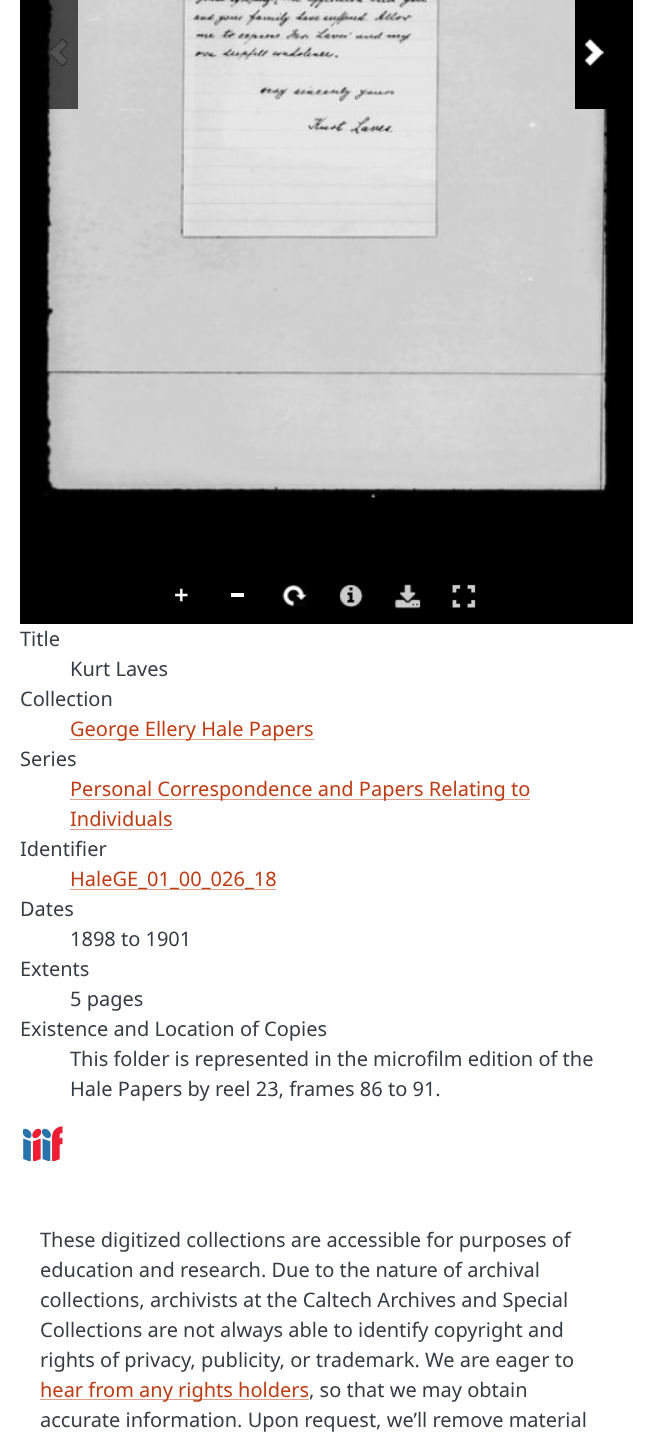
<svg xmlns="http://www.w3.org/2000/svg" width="652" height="1443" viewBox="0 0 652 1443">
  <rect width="100%" height="100%" fill="#fff"/>
  <path d="M20 0h613v624H20z" fill="#000"/>
  <image x="40" y="0" width="569" height="498" href="img/1.png"/>
  <path d="M44 0h34v109H44z" fill="#000000a6"/>
  <image x="50" y="38" width="18" height="29" href="img/2.png"/>
  <path d="M575 0h34v109H575z" fill="#000"/>
  <image x="584" y="38" width="20" height="29" href="img/3.png"/>
  <image x="174" y="588" width="14" height="14" href="img/4.png"/>
  <path d="M231 593h13v4H231z" fill="#fff"/>
  <image x="282" y="584" width="25" height="23" href="img/5.png"/>
  <image x="339" y="584" width="24" height="24" href="img/6.png"/>
  <image x="394" y="583" width="27" height="26" href="img/7.png"/>
  <image x="452" y="584" width="24" height="24" href="img/8.png"/>
  <path d="M70 739h244v1H70z" fill="#de9e89"/>
  <path d="M70 799h460v1H70z" fill="#de9e89"/>
  <path d="M70 829h103v1H70z" fill="#de9e89"/>
  <path d="M70 889h206v1H70z" fill="#de9e89"/>
  <image x="23" y="1126" width="40" height="35" href="img/9.png"/>
  <path d="M40 1399h269v1H40z" fill="#de9e89"/>
  <g font-family="Noto Sans" font-size="20" fill="#373c44">
    <text x="20" y="646">Title</text>
    <text x="70" y="676">Kurt Laves</text>
    <text x="20" y="706">Collection</text>
  </g>
  <text x="70" y="736" font-family="Noto Sans" font-size="20" fill="#bd3c13">George Ellery Hale Papers</text>
  <text x="20" y="766" font-family="Noto Sans" font-size="20" fill="#373c44">Series</text>
  <g font-family="Noto Sans" font-size="20" fill="#bd3c13">
    <text x="70" y="796">Personal Correspondence and Papers Relating to</text>
    <text x="70" y="826">Individuals</text>
  </g>
  <text x="20" y="856" font-family="Noto Sans" font-size="20" fill="#373c44">Identifier</text>
  <text x="70" y="886" font-family="Noto Sans" font-size="20" fill="#bd3c13">HaleGE_01_00_026_18</text>
  <g font-family="Noto Sans" font-size="20" fill="#373c44">
    <text x="20" y="916">Dates</text>
    <text x="70" y="946">1898 to 1901</text>
    <text x="20" y="976">Extents</text>
    <text x="70" y="1006">5 pages</text>
    <text x="20" y="1036">Existence and Location of Copies</text>
    <text x="70" y="1066">This folder is represented in the microfilm edition of the</text>
    <text x="70" y="1096">Hale Papers by reel 23, frames 86 to 91.</text>
    <text x="40" y="1247">These digitized collections are accessible for purposes of</text>
    <text x="40" y="1277">education and research. Due to the nature of archival</text>
    <text x="40" y="1307">collections, archivists at the Caltech Archives and Special</text>
    <text x="40" y="1337">Collections are not always able to identify copyright and</text>
    <text x="40" y="1367">rights of privacy, publicity, or trademark. We are eager to</text>
  </g>
  <text x="40" y="1397" font-family="Noto Sans" font-size="20" fill="#bd3c13">hear from any rights holders</text>
  <g font-family="Noto Sans" font-size="20" fill="#373c44">
    <text x="309" y="1397">, so that we may obtain</text>
    <text x="40" y="1427">accurate information. Upon request, we’ll remove material</text>
  </g>
</svg>
